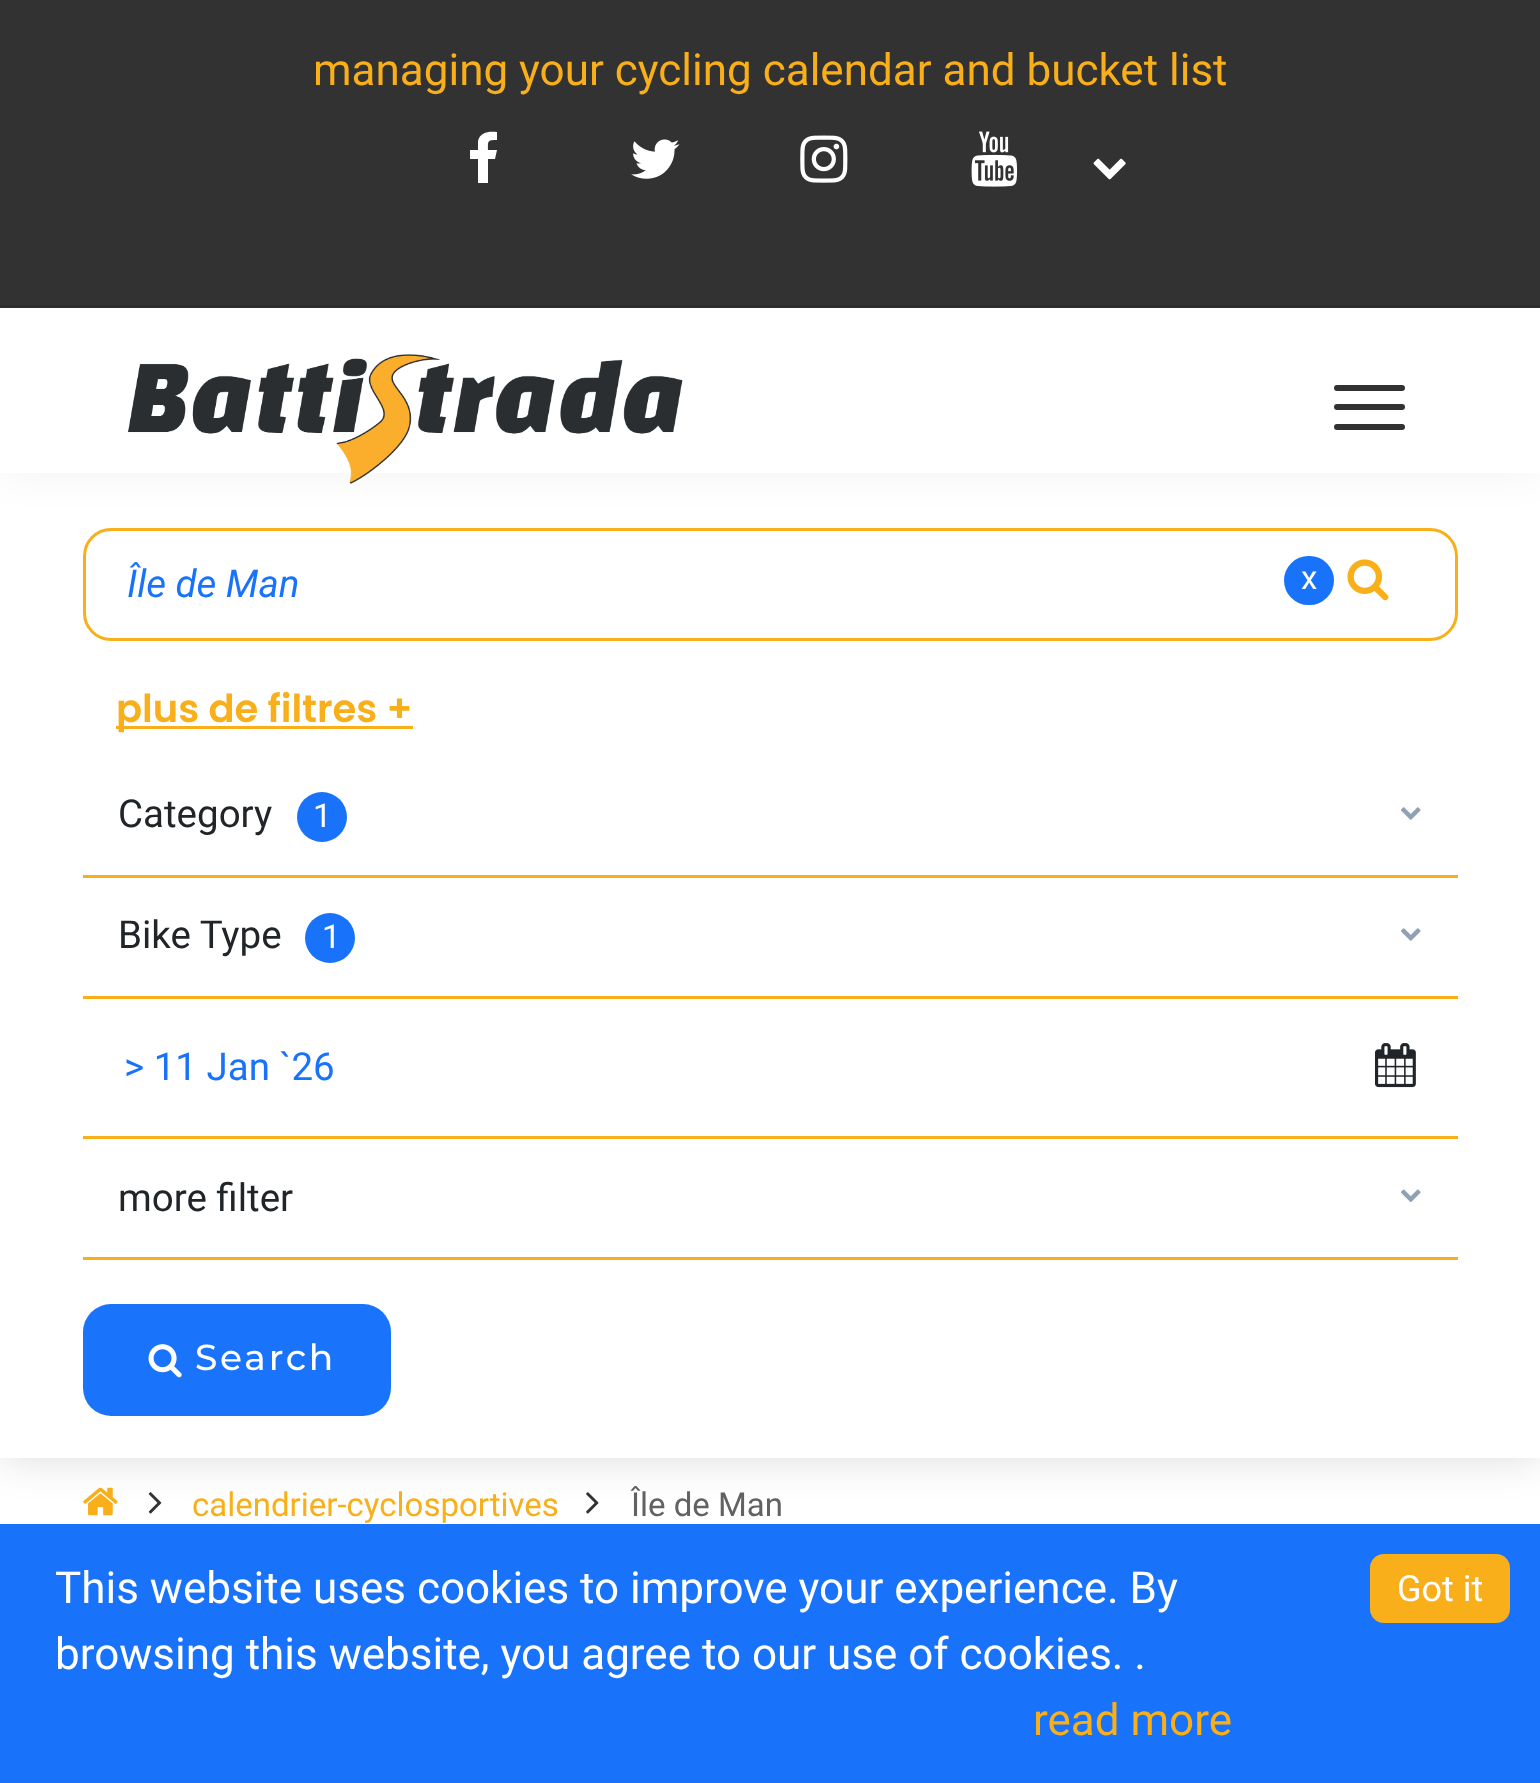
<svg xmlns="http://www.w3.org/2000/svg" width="1540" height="1783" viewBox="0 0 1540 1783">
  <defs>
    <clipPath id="clip1"><path d="M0 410H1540V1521H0ZM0 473H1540V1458H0Z" clip-rule="evenodd"/></clipPath>
  </defs>
  <rect width="100%" height="100%" fill="#fff"/>
  <image x="83" y="1487" width="35" height="29" href="img/11.png"/>
  <image x="148" y="1492" width="14" height="22" href="img/12.png"/>
  <image x="586" y="1492" width="13" height="22" href="img/13.png"/>
  <g clip-path="url(#clip1)">
    <path d="M0 473h1540v985H0z" fill="#00000024" filter="blur(20.5px)"/>
  </g>
  <rect x="84.5" y="529.5" width="1372" height="110" rx="26.5" fill="none" stroke="#f9af1a" stroke-width="3"/>
  <path d="M0 0h1540v473H0z" fill="#0000000d" filter="blur(20.5px)"/>
  <path d="M0 308h1540v165H0z" fill="#fff"/>
  <path d="M0 0h1540v305H0z" fill="#323232"/>
  <path d="M0 305h1540v3H0z" fill="#2d2d2d"/>
  <path d="M497 132V140C487 140 488 141 488 150H497L495 159H488V183H478V159H470V150H478V141C480 132 489 131 497 132Z" fill="#fff"/>
  <image x="631" y="139" width="49" height="40" href="img/1.png"/>
  <image x="800" y="135" width="48" height="48" href="img/2.png"/>
  <image x="971" y="131" width="47" height="56" href="img/3.png"/>
  <image x="1093" y="158" width="33" height="22" href="img/4.png"/>
  <image x="127" y="354" width="556" height="130" href="img/5.png"/>
  <rect x="1334" y="385" width="71" height="6" rx="3" fill="#323232"/>
  <rect x="1334" y="404" width="71" height="6" rx="3" fill="#323232"/>
  <rect x="1334" y="424" width="71" height="6" rx="3" fill="#323232"/>
  <rect x="1284" y="556" width="50" height="49" rx="24.5" fill="#1973fa"/>
  <image x="1347" y="559" width="42" height="42" href="img/6.png"/>
  <path d="M116 726h297v3H116z" fill="#f9af19"/>
  <path d="M83 875h1375v3H83z" fill="#f9af1a"/>
  <circle cx="322" cy="817" r="25" fill="#1973fa"/>
  <image x="1401" y="807" width="20" height="13" href="img/7.png"/>
  <path d="M83 996h1375v3H83z" fill="#f9af1a"/>
  <circle cx="330" cy="938" r="25" fill="#1973fa"/>
  <image x="1401" y="928" width="20" height="13" href="img/7.png"/>
  <path d="M83 1136h1375v3H83z" fill="#f9af1a"/>
  <image x="1375" y="1043" width="41" height="45" href="img/8.png"/>
  <path d="M83 1257h1375v3H83z" fill="#f9af1a"/>
  <image x="1400" y="1189" width="21" height="14" href="img/9.png"/>
  <rect x="83" y="1304" width="308" height="112" rx="28" fill="#1973fb"/>
  <image x="148" y="1344" width="34" height="34" href="img/10.png"/>
  <path d="M0 1524h1540v259H0z" fill="#1973fa"/>
  <rect x="1370" y="1554" width="140" height="69" rx="14" fill="#f9af19"/>
  <text x="313" y="85" font-family="Roboto" font-size="44" fill="#f9af19">managing your cycling calendar and bucket list</text>
  <text x="127" y="597" font-family="Roboto" font-size="38.5" font-style="italic" fill="#1973fa">Île de Man</text>
  <text x="1301" y="589" font-family="Roboto" font-size="33" fill="#fff">x</text>
  <text x="116" y="722" font-family="Poppins" font-size="38.5" font-weight="600" fill="#f9af19">plus de filtres +</text>
  <text x="118" y="827" font-family="Roboto" font-size="38.5" fill="#212529">Category</text>
  <text x="313" y="827" font-family="Roboto" font-size="33" fill="#fff">1</text>
  <text x="118" y="948" font-family="Roboto" font-size="38.5" fill="#212529">Bike Type</text>
  <text x="322" y="948" font-family="Roboto" font-size="33" fill="#fff">1</text>
  <text x="124" y="1080" font-family="Roboto" font-size="38.5" fill="#1973fa">&gt; 11 Jan `26</text>
  <text x="118" y="1211" font-family="Roboto" font-size="38.5" fill="#212529">more filter</text>
  <text x="195" y="1370" font-family="Montserrat" font-size="36" font-weight="500" letter-spacing="2.75" fill="#fff">Search</text>
  <text x="192" y="1516" font-family="Roboto" font-size="33" fill="#f9af19">calendrier-cyclosportives</text>
  <text x="631" y="1516" font-family="Roboto" font-size="33" fill="#626262">Île de Man</text>
  <text x="55" y="1603" font-family="Roboto" font-size="44" fill="#fff">This website uses cookies to improve your experience. By</text>
  <text x="1397" y="1601" font-family="Roboto" font-size="36" fill="#fff">Got it</text>
  <text x="55" y="1669" font-family="Roboto" font-size="44" fill="#fff">browsing this website, you agree to our use of cookies. .</text>
  <text x="1033" y="1735" font-family="Roboto" font-size="44" fill="#f9af19">read more</text>
</svg>
